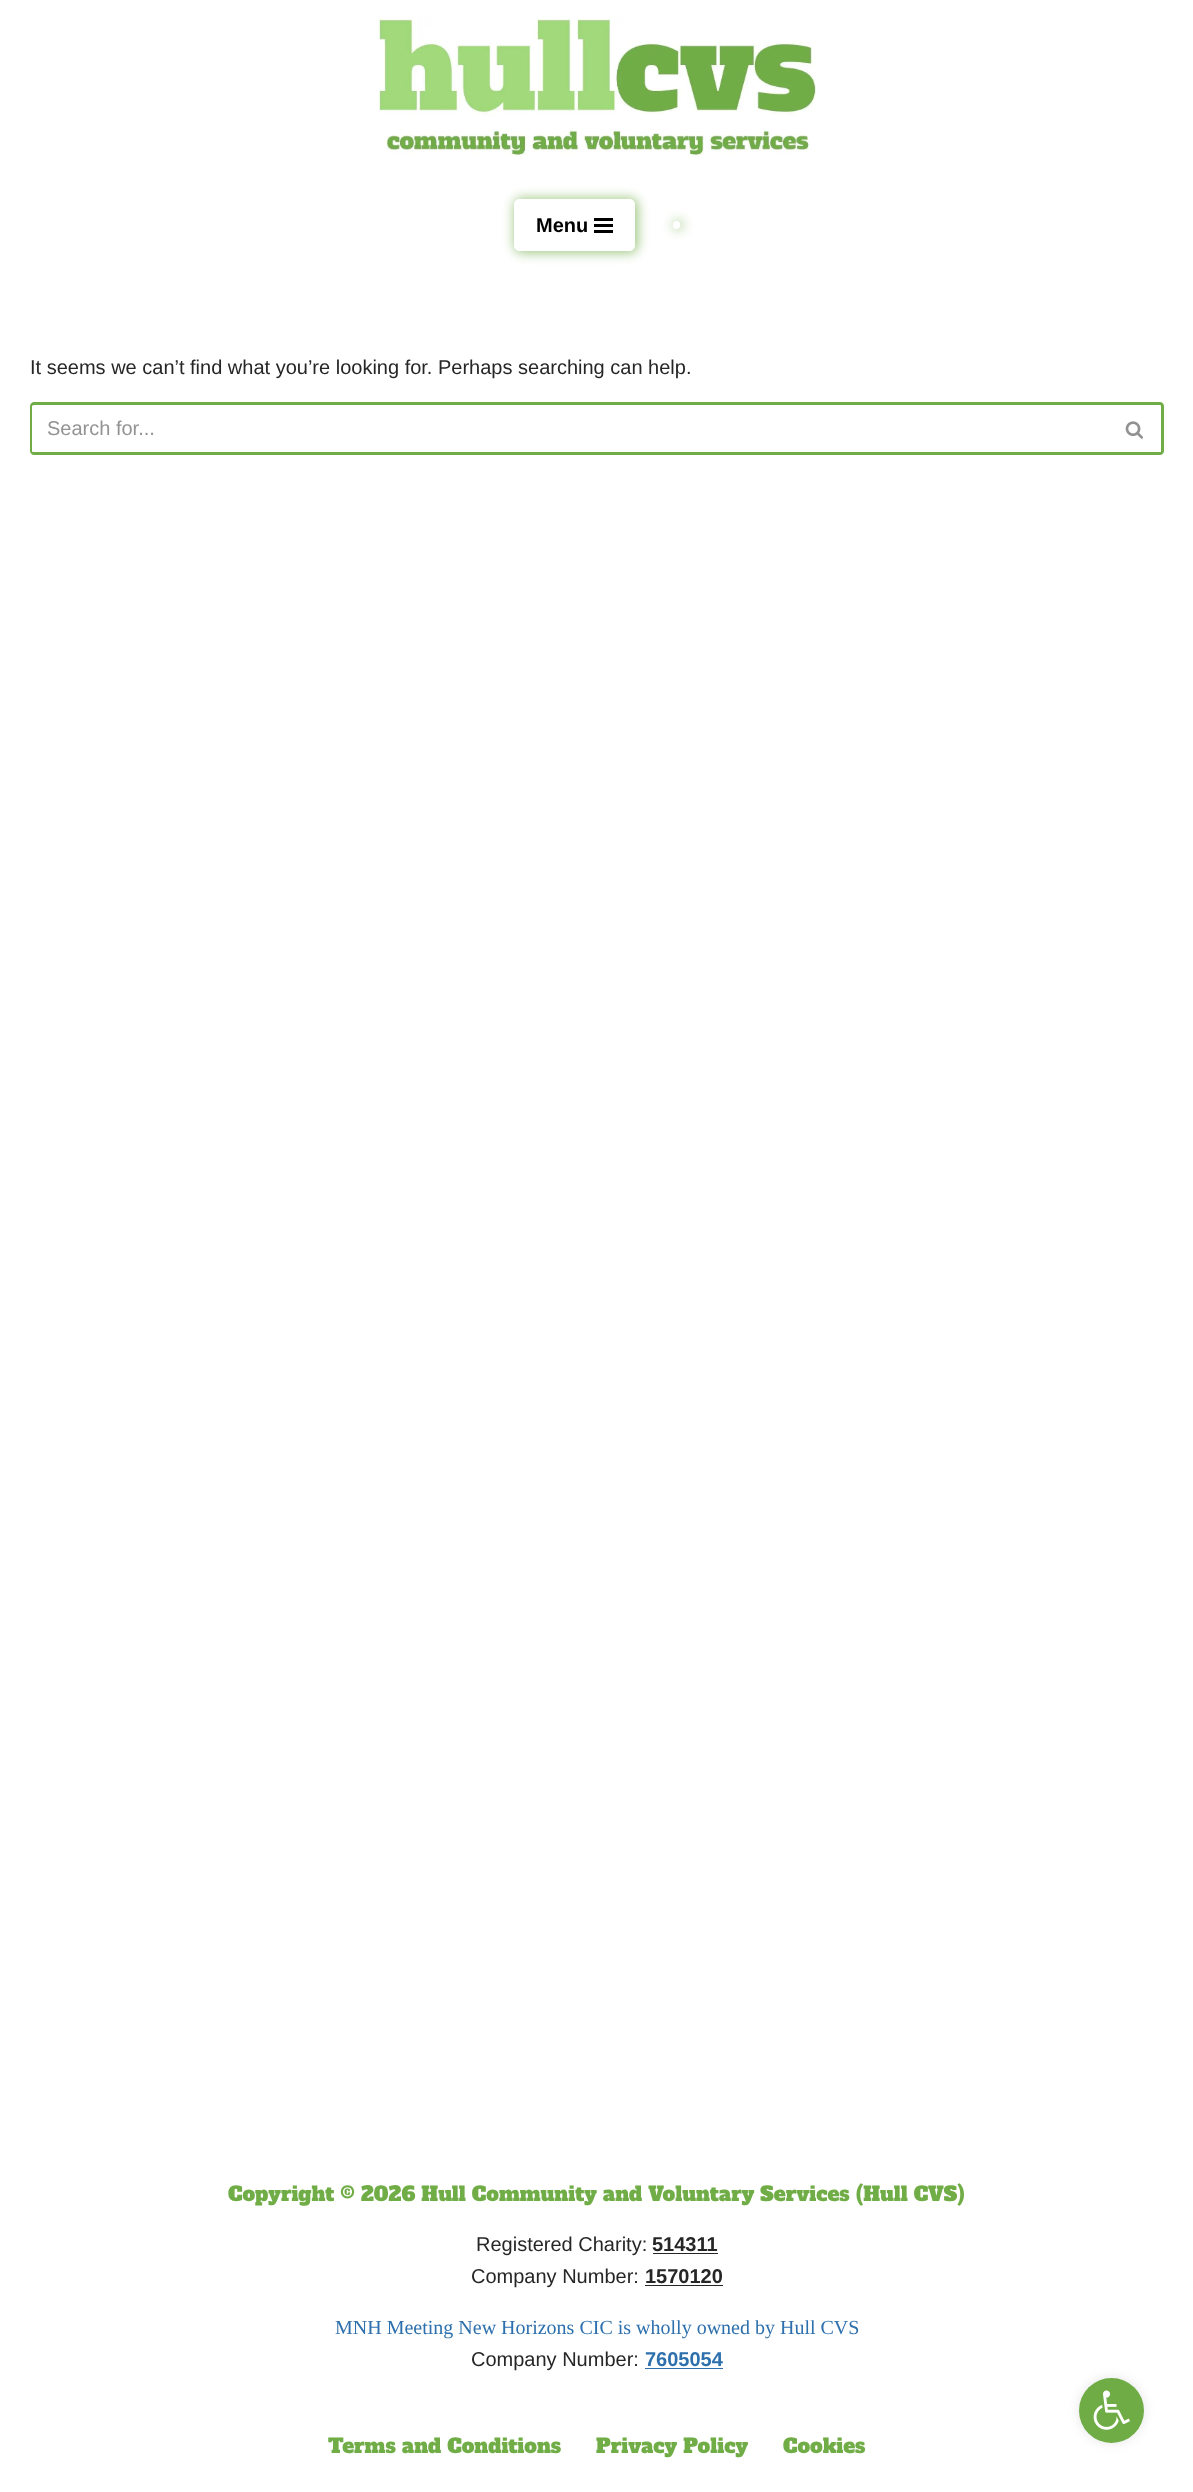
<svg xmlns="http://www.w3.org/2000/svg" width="1193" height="2492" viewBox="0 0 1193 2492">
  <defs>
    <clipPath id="clip1"><path d="M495 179H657V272H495ZM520 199H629C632.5 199 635 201.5 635 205V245C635 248.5 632.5 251 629 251H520C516.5 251 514 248.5 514 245V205C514 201.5 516.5 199 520 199Z" clip-rule="evenodd"/></clipPath>
  </defs>
  <rect width="100%" height="100%" fill="#fff"/>
  <image x="378" y="17" width="439" height="139" href="img/1.png"/>
  <g clip-path="url(#clip1)">
    <rect x="514" y="198" width="124" height="55" rx="8" fill="#70ad47ab" filter="blur(6px)"/>
  </g>
  <rect x="516" y="201" width="117" height="48" rx="4" fill="none" stroke="#fff" stroke-width="4"/>
  <path d="M594 218h19v3H594z" fill="#000"/>
  <path d="M594 224h19v3H594z" fill="#000"/>
  <path d="M594 230h19v3H594z" fill="#000"/>
  <rect x="673" y="220" width="10" height="10" rx="5" fill="#70ad47ab" filter="blur(6px)"/>
  <rect x="673" y="221" width="7" height="8" rx="3.5" fill="#fff"/>
  <path d="M34 402H1108V455H34C32 455 30 453 30 451V406C30 404 32 402 34 402ZM34 405H1108V452H34C33 452 32 452 32 451V406C32 406 33 405 34 405Z" fill="#70ad47" fill-rule="evenodd"/>
  <path d="M1108 402H1160C1162 402 1164 404 1164 406V451C1164 453 1162 455 1160 455H1108ZM1108 405H1160C1161 405 1161 406 1161 406V451C1161 452 1161 452 1160 452H1108Z" fill="#70ad47" fill-rule="evenodd"/>
  <image x="1125" y="421" width="18" height="18" href="img/2.png"/>
  <path d="M653 2253h65v1H653z" fill="#272626"/>
  <path d="M645 2285h78v1H645z" fill="#272626"/>
  <path d="M645 2368h78v1H645z" fill="#2d70ad"/>
  <rect x="1079" y="2378" width="65" height="65" rx="32.5" fill="#0000001a" filter="blur(6px)"/>
  <circle cx="1111.5" cy="2410.5" r="32.5" fill="#6fac46"/>
  <image x="1093" y="2390" width="37" height="40" href="img/3.png"/>
  <text x="536" y="232" font-family="Liberation Sans" font-size="20" font-weight="bold" fill="#000">Menu</text>
  <text x="30" y="374" font-family="Liberation Sans" font-size="20" fill="#272626">It seems we can’t find what you’re looking for. Perhaps searching can help.</text>
  <text x="47" y="435" font-family="Liberation Sans" font-size="20" fill="#939393">Search for...</text>
  <text x="228" y="2201" font-family="Alfa Slab One" font-size="20" fill="#70ad47">Copyright © 2026 Hull Community and Voluntary Services (Hull CVS)</text>
  <text x="476" y="2251" font-family="Liberation Sans" font-size="20" fill="#272626">Registered Charity:</text>
  <text x="652" y="2251" font-family="Liberation Sans" font-size="20" font-weight="bold" fill="#272626">514311</text>
  <text x="471" y="2283" font-family="Liberation Sans" font-size="20" fill="#272626">Company Number:</text>
  <text x="645" y="2283" font-family="Liberation Sans" font-size="20" font-weight="bold" fill="#272626">1570120</text>
  <text x="335" y="2334" font-family="Liberation Serif" font-size="20" fill="#2d70ad">MNH Meeting New Horizons CIC is wholly owned by Hull CVS</text>
  <text x="471" y="2366" font-family="Liberation Sans" font-size="20" fill="#272626">Company Number:</text>
  <text x="645" y="2366" font-family="Liberation Sans" font-size="20" font-weight="bold" fill="#2d70ad">7605054</text>
  <g font-family="Alfa Slab One" font-size="20" fill="#70ad47">
    <text x="328" y="2453">Terms and Conditions</text>
    <text x="596" y="2453">Privacy Policy</text>
    <text x="783" y="2453">Cookies</text>
  </g>
</svg>
